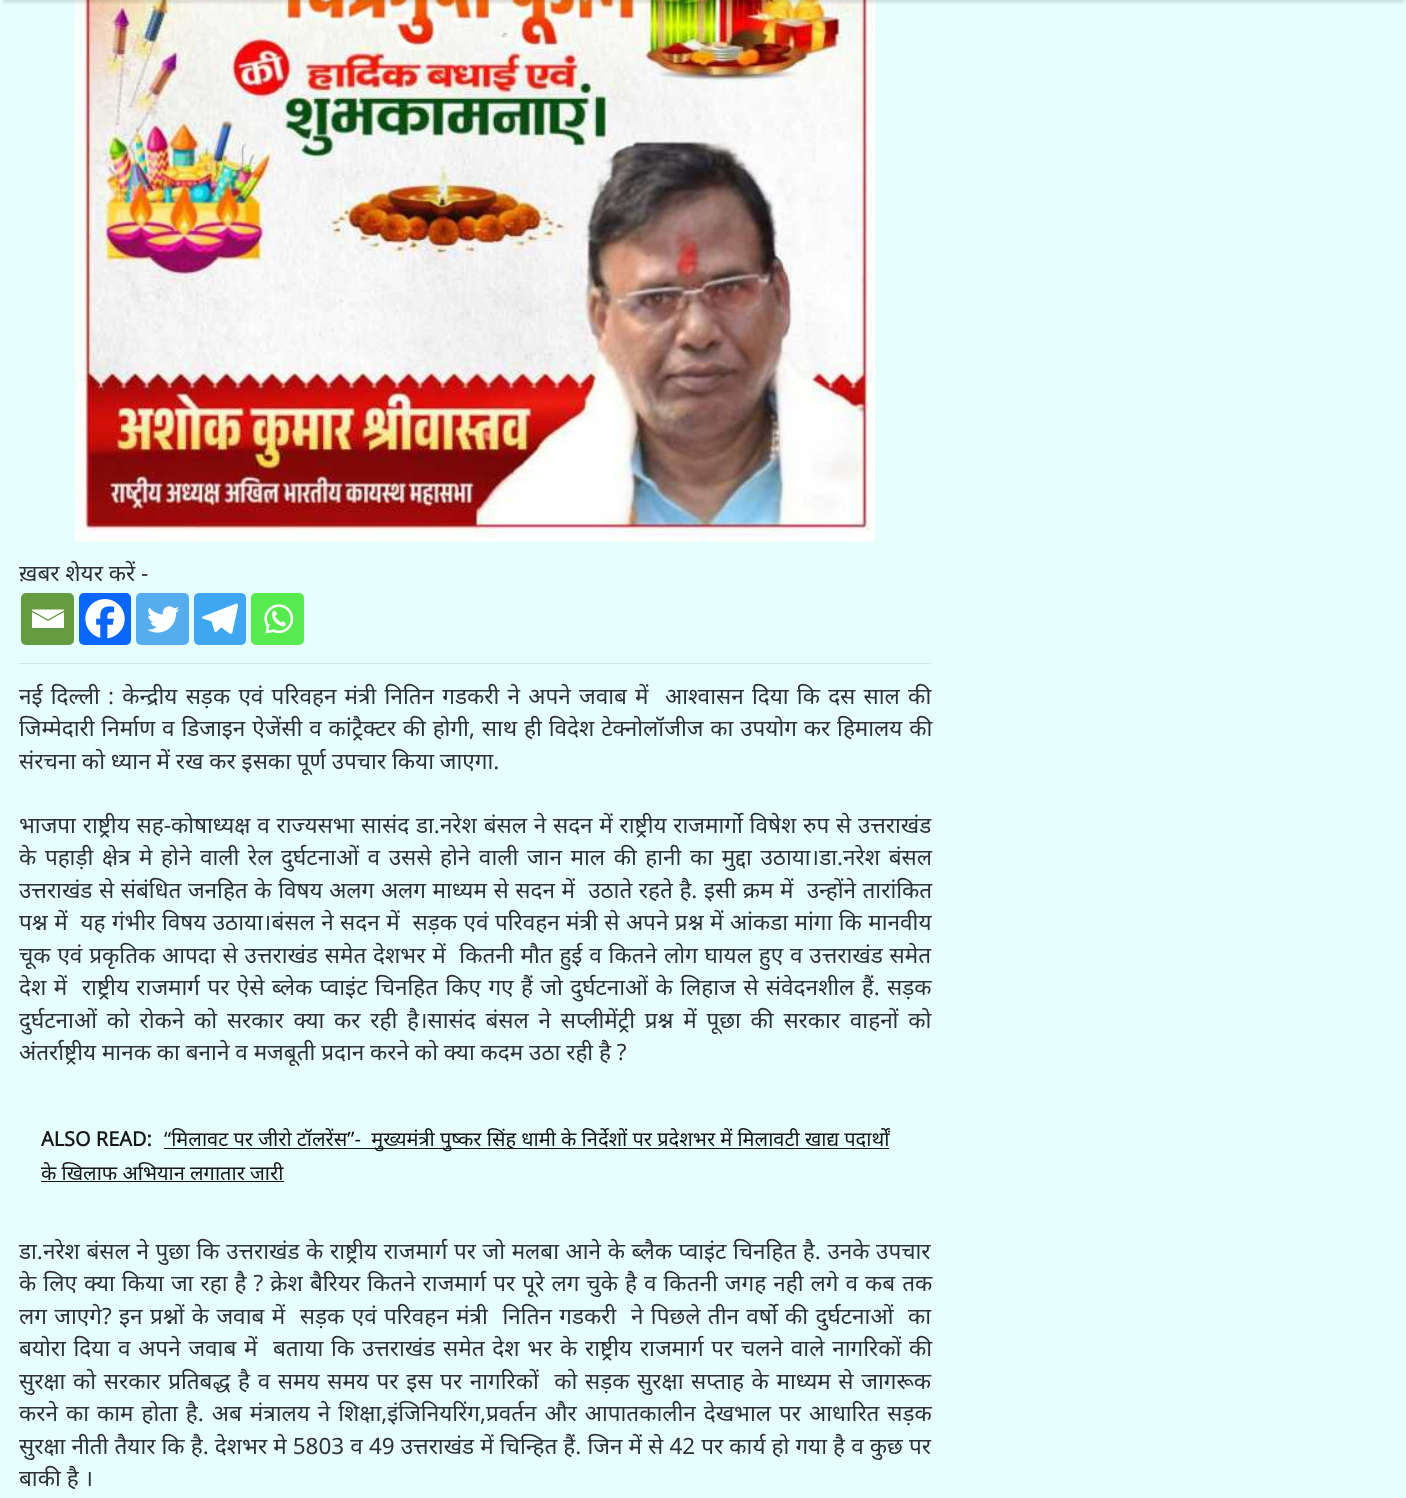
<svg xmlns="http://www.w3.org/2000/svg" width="1406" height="1498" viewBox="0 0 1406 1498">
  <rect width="100%" height="100%" fill="#e6fffd"/>
  <image x="75" y="0" width="800" height="542" href="img/1.png"/>
  <path d="M3 -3h1401v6H3z" fill="#0000001a" filter="blur(1px)"/>
  <path d="M19 663h912v1H19z" fill="#cfe6e4"/>
  <rect x="21" y="593" width="53" height="52" rx="5" fill="#659b41"/>
  <path d="M30.5 609.5H64V610.5L48 619.5L32 610.5V609.5M32 612L48 621L64 612V628H32V612" fill="#fff"/>
  <rect x="79" y="593" width="52" height="52" rx="5" fill="#0967fe"/>
  <image x="85" y="599" width="40" height="40" href="img/2.png"/>
  <rect x="136" y="593" width="53" height="52" rx="5" fill="#56adee"/>
  <image x="147" y="606" width="33" height="27" href="img/3.png"/>
  <rect x="194" y="593" width="52" height="52" rx="5" fill="#3fa6f1"/>
  <image x="202" y="603" width="36" height="31" href="img/4.png"/>
  <rect x="251" y="593" width="53" height="52" rx="5" fill="#56eb4e"/>
  <image x="264" y="604" width="30" height="30" href="img/5.png"/>
  <path d="M164 1148h725v1H164z" fill="#161616"/>
  <path d="M41 1181h243v1H41z" fill="#161616"/>
  <g font-family="Noto Sans" font-size="22.5" fill="#2e3136">
    <text x="19" y="581">ख़बर शेयर करें -</text>
    <text x="19" y="704" word-spacing="2.4" xml:space="preserve">नई दिल्ली : केन्द्रीय सड़क एवं परिवहन मंत्री नितिन गडकरी ने अपने जवाब में  आश्वासन दिया कि दस साल की</text>
    <text x="19" y="736" word-spacing="1">जिम्मेदारी निर्माण व डिजाइन ऐजेंसी व कांट्रैक्टर की होगी, साथ ही विदेश टेक्नोलॉजीज का उपयोग कर हिमालय की</text>
    <text x="19" y="769">संरचना को ध्यान में रख कर इसका पूर्ण उपचार किया जाएगा.</text>
    <text x="19" y="833" word-spacing="0.9">भाजपा राष्ट्रीय सह-कोषाध्यक्ष व राज्यसभा सासंद डा.नरेश बंसल ने सदन में राष्ट्रीय राजमार्गो विषेश रुप से उत्तराखंड</text>
    <text x="19" y="865" word-spacing="2.75">के पहाड़ी क्षेत्र मे होने वाली रेल दुर्घटनाओं व उससे होने वाली जान माल की हानी का मुद्दा उठाया।डा.नरेश बंसल</text>
    <text x="19" y="898" word-spacing="0.75" xml:space="preserve">उत्तराखंड से संबंधित जनहित के विषय अलग अलग माध्यम से सदन में  उठाते रहते है. इसी क्रम में  उन्होंने तारांकित</text>
    <text x="19" y="930" word-spacing="0.6" xml:space="preserve">पश्न में  यह गंभीर विषय उठाया।बंसल ने सदन में  सड़क एवं परिवहन मंत्री से अपने प्रश्न में आंकडा मांगा कि मानवीय</text>
    <text x="19" y="963" word-spacing="1" xml:space="preserve">चूक एवं प्रकृतिक आपदा से उत्तराखंड समेत देशभर में  कितनी मौत हुई व कितने लोग घायल हुए व उत्तराखंड समेत</text>
    <text x="19" y="995" word-spacing="1.55" xml:space="preserve">देश में  राष्ट्रीय राजमार्ग पर ऐसे ब्लेक प्वाइंट चिनहित किए गए हैं जो दुर्घटनाओं के लिहाज से संवेदनशील हैं. सड़क</text>
    <text x="19" y="1028" word-spacing="3.9">दुर्घटनाओं को रोकने को सरकार क्या कर रही है।सासंद बंसल ने सप्लीमेंट्री प्रश्न में पूछा की सरकार वाहनों को</text>
    <text x="19" y="1060">अंतर्राष्ट्रीय मानक का बनाने व मजबूती प्रदान करने को क्या कदम उठा रही है ?</text>
  </g>
  <text x="41" y="1146" font-family="Open Sans" font-size="20" font-weight="bold" fill="#161616">ALSO READ:</text>
  <g font-family="Noto Sans" font-size="20" fill="#161616">
    <text x="164" y="1146" xml:space="preserve">“मिलावट पर जीरो टॉलरेंस”-  मुख्यमंत्री पुष्कर सिंह धामी के निर्देशों पर प्रदेशभर में मिलावटी खाद्य पदार्थों</text>
    <text x="41" y="1180">के खिलाफ अभियान लगातार जारी</text>
  </g>
  <g font-family="Noto Sans" font-size="22.5" fill="#2e3136">
    <text x="19" y="1259" word-spacing="0.75">डा.नरेश बंसल ने पुछा कि उत्तराखंड के राष्ट्रीय राजमार्ग पर जो मलबा आने के ब्लैक प्वाइंट चिनहित है. उनके उपचार</text>
    <text x="19" y="1291" word-spacing="1.2">के लिए क्या किया जा रहा है ? क्रेश बैरियर कितने राजमार्ग पर पूरे लग चुके है व कितनी जगह नही लगे व कब तक</text>
    <text x="19" y="1324" word-spacing="1.5" xml:space="preserve">लग जाएगे? इन प्रश्नों के जवाब में  सड़क एवं परिवहन मंत्री  नितिन गडकरी  ने पिछले तीन वर्षो की दुर्घटनाओं  का</text>
    <text x="19" y="1356" word-spacing="1.9" xml:space="preserve">बयोरा दिया व अपने जवाब में  बताया कि उत्तराखंड समेत देश भर के राष्ट्रीय राजमार्ग पर चलने वाले नागरिकों की</text>
    <text x="19" y="1389" word-spacing="1.8" xml:space="preserve">सुरक्षा को सरकार प्रतिबद्ध है व समय समय पर इस पर नागरिकों  को सड़क सुरक्षा सप्ताह के माध्यम से जागरूक</text>
    <text x="19" y="1421" word-spacing="2.1">करने का काम होता है. अब मंत्रालय ने शिक्षा,इंजिनियरिंग,प्रवर्तन और आपातकालीन देखभाल पर आधारित सड़क</text>
    <text x="19" y="1454" word-spacing="0.25">सुरक्षा नीती तैयार कि है. देशभर मे 5803 व 49 उत्तराखंड में चिन्हित हैं. जिन में से 42 पर कार्य हो गया है व कुछ पर</text>
    <text x="19" y="1486">बाकी है ।</text>
  </g>
</svg>
